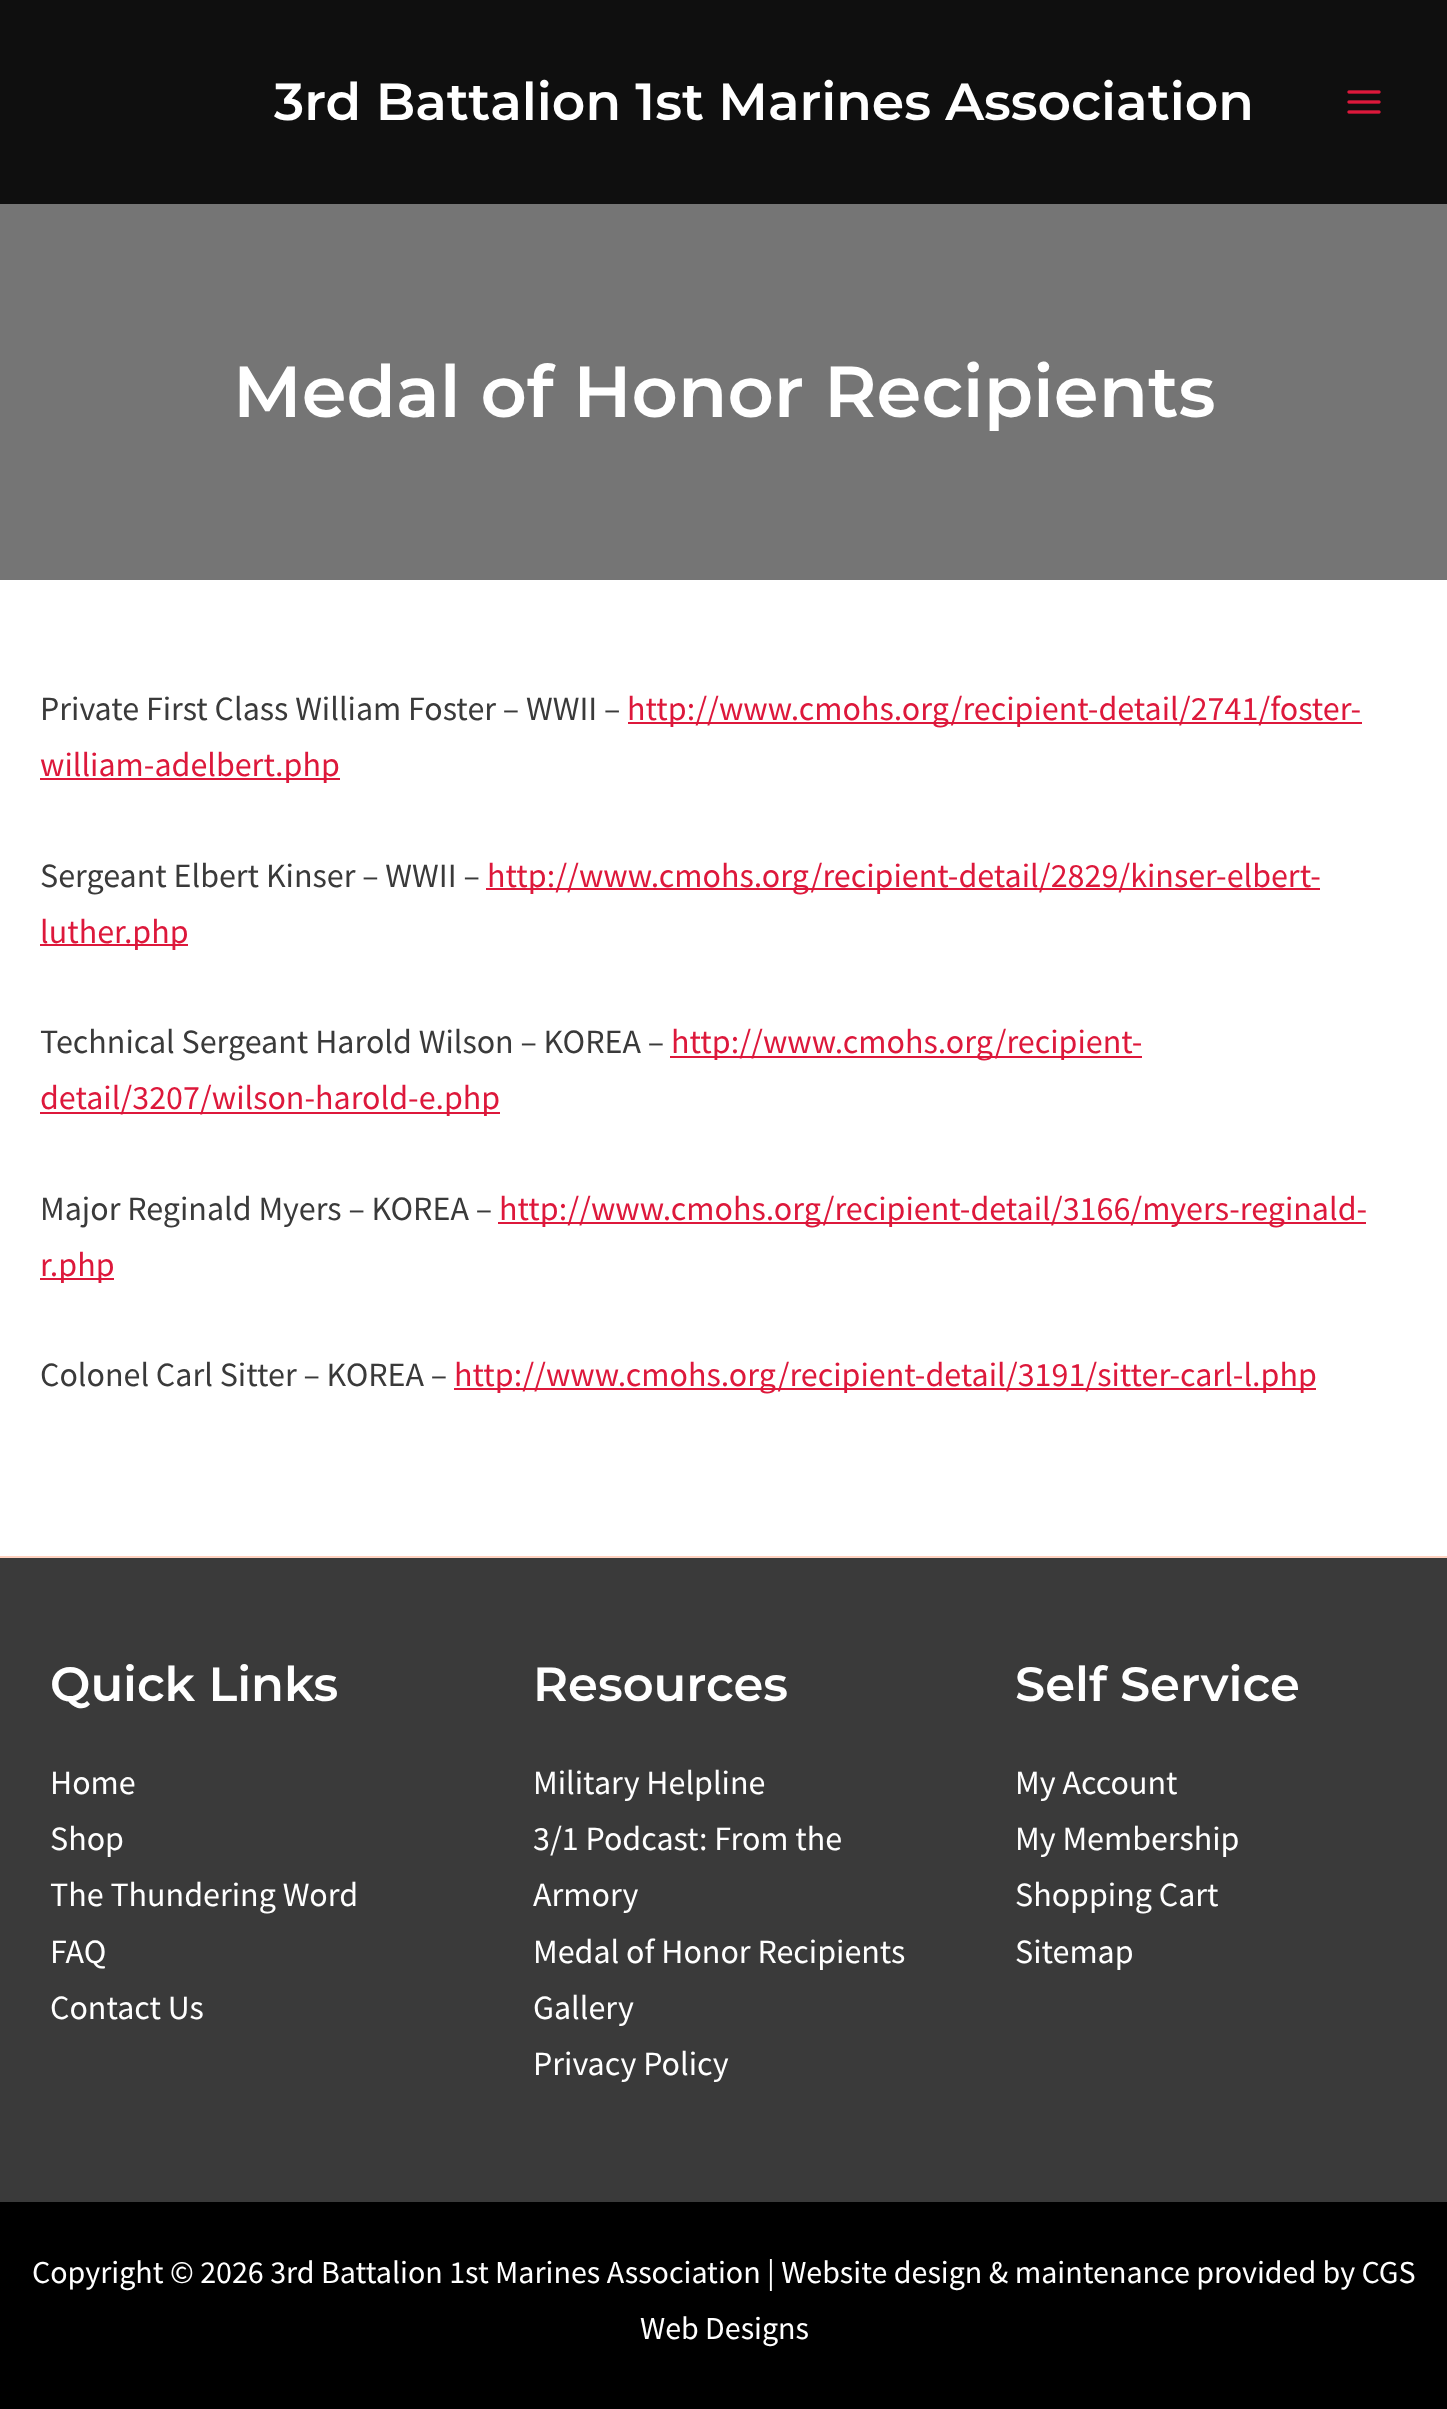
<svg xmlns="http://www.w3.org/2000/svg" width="1447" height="2409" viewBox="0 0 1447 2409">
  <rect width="100%" height="100%" fill="#fff"/>
  <path d="M0 0h1447v204H0z" fill="#0f0f0f"/>
  <image x="1347" y="90" width="34" height="24" href="img/1.png"/>
  <path d="M0 204h1447v376H0z" fill="#757575"/>
  <path d="M628 722h734v2H628z" fill="#dd183b"/>
  <path d="M40 778h300v2H40z" fill="#dd183b"/>
  <path d="M486 888h834v2H486z" fill="#dd183b"/>
  <path d="M40 944h148v2H40z" fill="#dd183b"/>
  <path d="M670 1056h472v2H670z" fill="#dd183b"/>
  <path d="M40 1112h460v2H40z" fill="#dd183b"/>
  <path d="M498 1222h868v2H498z" fill="#dd183b"/>
  <path d="M40 1278h74v2H40z" fill="#dd183b"/>
  <path d="M454 1388h862v2H454z" fill="#dd183b"/>
  <path d="M0 1558h1447v644H0z" fill="#3a3a3a"/>
  <path d="M0 1556h1447v2H0z" fill="#ffd1bf"/>
  <path d="M0 2202h1447v207H0z" fill="#000"/>
  <text x="274" y="120" font-family="Montserrat" font-size="52" font-weight="600" fill="#fff">3rd Battalion 1st Marines Association</text>
  <text x="233" y="417" font-family="Montserrat" font-size="72" font-weight="600" fill="#fff">Medal of Honor Recipients</text>
  <text x="40" y="720" font-family="Source Sans Pro" font-size="34" fill="#3a3a3a">Private First Class William Foster – WWII –</text>
  <g font-family="Source Sans Pro" font-size="34" fill="#dd183b">
    <text x="627" y="720">http://www.cmohs.org/recipient-detail/2741/foster-</text>
    <text x="40" y="776">william-adelbert.php</text>
  </g>
  <text x="40" y="887" font-family="Source Sans Pro" font-size="34" fill="#3a3a3a">Sergeant Elbert Kinser – WWII –</text>
  <g font-family="Source Sans Pro" font-size="34" fill="#dd183b">
    <text x="487" y="887">http://www.cmohs.org/recipient-detail/2829/kinser-elbert-</text>
    <text x="40" y="943">luther.php</text>
  </g>
  <text x="40" y="1053" font-family="Source Sans Pro" font-size="34" fill="#3a3a3a">Technical Sergeant Harold Wilson – KOREA –</text>
  <g font-family="Source Sans Pro" font-size="34" fill="#dd183b">
    <text x="671" y="1053">http://www.cmohs.org/recipient-</text>
    <text x="40" y="1109">detail/3207/wilson-harold-e.php</text>
  </g>
  <text x="40" y="1220" font-family="Source Sans Pro" font-size="34" fill="#3a3a3a">Major Reginald Myers – KOREA –</text>
  <g font-family="Source Sans Pro" font-size="34" fill="#dd183b">
    <text x="499" y="1220">http://www.cmohs.org/recipient-detail/3166/myers-reginald-</text>
    <text x="40" y="1276">r.php</text>
  </g>
  <text x="40" y="1386" font-family="Source Sans Pro" font-size="34" fill="#3a3a3a">Colonel Carl Sitter – KOREA –</text>
  <text x="454" y="1386" font-family="Source Sans Pro" font-size="34" fill="#dd183b">http://www.cmohs.org/recipient-detail/3191/sitter-carl-l.php</text>
  <text x="50" y="1701" font-family="Montserrat" font-size="48" font-weight="600" fill="#fff">Quick Links</text>
  <g font-family="Source Sans Pro" font-size="34" fill="#fff">
    <text x="50" y="1794">Home</text>
    <text x="50" y="1850">Shop</text>
    <text x="50" y="1906">The Thundering Word</text>
    <text x="50" y="1963">FAQ</text>
    <text x="50" y="2019">Contact Us</text>
  </g>
  <text x="533" y="1701" font-family="Montserrat" font-size="48" font-weight="600" fill="#fff">Resources</text>
  <g font-family="Source Sans Pro" font-size="34" fill="#fff">
    <text x="533" y="1794">Military Helpline</text>
    <text x="533" y="1850">3/1 Podcast: From the</text>
    <text x="533" y="1906">Armory</text>
    <text x="533" y="1963">Medal of Honor Recipients</text>
    <text x="533" y="2019">Gallery</text>
    <text x="533" y="2075">Privacy Policy</text>
  </g>
  <text x="1015" y="1701" font-family="Montserrat" font-size="48" font-weight="600" fill="#fff">Self Service</text>
  <g font-family="Source Sans Pro" font-size="34" fill="#fff">
    <text x="1015" y="1794">My Account</text>
    <text x="1015" y="1850">My Membership</text>
    <text x="1015" y="1906">Shopping Cart</text>
    <text x="1015" y="1963">Sitemap</text>
  </g>
  <g font-family="Source Sans Pro" font-size="32" fill="#fff">
    <text x="32" y="2283">Copyright © 2026 3rd Battalion 1st Marines Association | Website design &amp; maintenance provided by CGS</text>
    <text x="640" y="2339">Web Designs</text>
  </g>
</svg>
